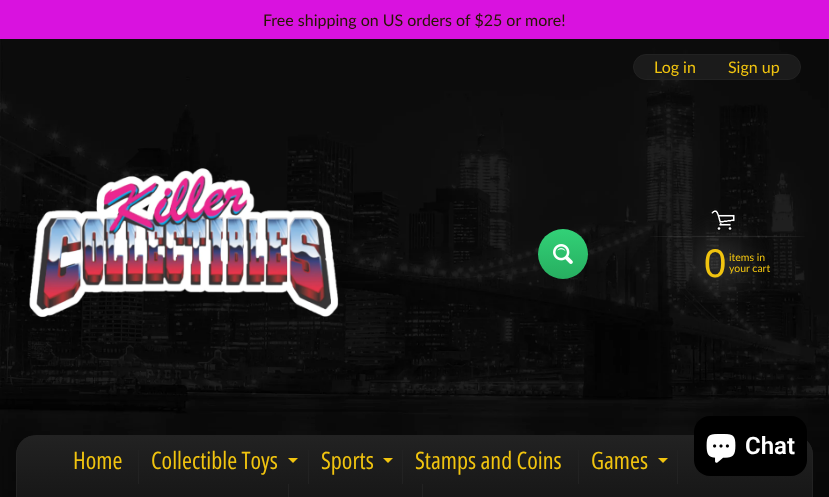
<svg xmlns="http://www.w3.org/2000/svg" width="829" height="497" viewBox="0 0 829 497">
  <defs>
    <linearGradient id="g1" gradientUnits="userSpaceOnUse" x1="563" y1="229" x2="563" y2="279"><stop offset="0" stop-color="#32d177"/><stop offset="1" stop-color="#27ae60"/></linearGradient>
    <clipPath id="clip1"><rect x="16" y="435" width="797" height="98" rx="20"/></clipPath>
    <linearGradient id="g2" gradientUnits="userSpaceOnUse" x1="415" y1="436" x2="415" y2="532"><stop offset="0" stop-color="#222"/><stop offset="1" stop-color="#111"/></linearGradient>
  </defs>
  <rect width="100%" height="100%" fill="#fff"/>
  <image x="0" y="39" width="829" height="458" href="img/1.png"/>
  <path d="M0 0h829v39H0z" fill="#d912df"/>
  <image x="29" y="168" width="310" height="150" href="img/2.png"/>
  <rect x="633.5" y="54.5" width="167" height="25" rx="12.5" fill="#222222b3" stroke="#222"/>
  <circle cx="563" cy="254" r="25" fill="url(#g1)"/>
  <image x="553" y="244" width="20" height="20" href="img/3.png"/>
  <image x="650" y="208" width="155" height="94" href="img/4.png"/>
  <g clip-path="url(#clip1)">
    <path d="M16 436h797v61H16z" fill="url(#g2)"/>
  </g>
  <rect x="16.5" y="435.5" width="796" height="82" rx="19.5" fill="none" stroke="#222"/>
  <path d="M138 450h1v34H138z" fill="#222"/>
  <path d="M288 458H298L293 463Z" fill="#f1c40f"/>
  <path d="M308 450h1v34H308z" fill="#222"/>
  <path d="M383 458H393L388 463Z" fill="#f1c40f"/>
  <path d="M402 450h1v34H402z" fill="#222"/>
  <path d="M578 450h1v34H578z" fill="#222"/>
  <path d="M658 458H668L663 463Z" fill="#f1c40f"/>
  <path d="M677 450h1v34H677z" fill="#222"/>
  <path d="M288 484h1v13H288z" fill="#222"/>
  <path d="M422 484h1v13H422z" fill="#222"/>
  <rect x="694" y="416" width="113" height="60" rx="16" fill="#000"/>
  <image x="706" y="434" width="30" height="29" href="img/5.png"/>
  <text x="263" y="26" font-family="Lato" font-size="16" fill="#251800">Free shipping on US orders of $25 or more!</text>
  <g font-family="Lato" font-size="16" fill="#f1c40f">
    <text x="654" y="73">Log in</text>
    <text x="728" y="73">Sign up</text>
  </g>
  <text x="704" y="277" font-family="Liberation Sans" font-size="40" fill="#f1c40f">0</text>
  <g font-family="Lato" font-size="10.5" fill="#f1c40f">
    <text x="729" y="261">items in</text>
    <text x="729" y="272">your cart</text>
  </g>
  <g font-family="Open Sans Condensed" font-size="24" fill="#f1c40f">
    <text x="73" y="469">Home</text>
    <text x="151" y="469">Collectible Toys</text>
    <text x="321" y="469">Sports</text>
    <text x="415" y="469">Stamps and Coins</text>
    <text x="591" y="469">Games</text>
  </g>
  <text x="745" y="454" font-family="Roboto" font-size="24" font-weight="600" fill="#fff">Chat</text>
</svg>
